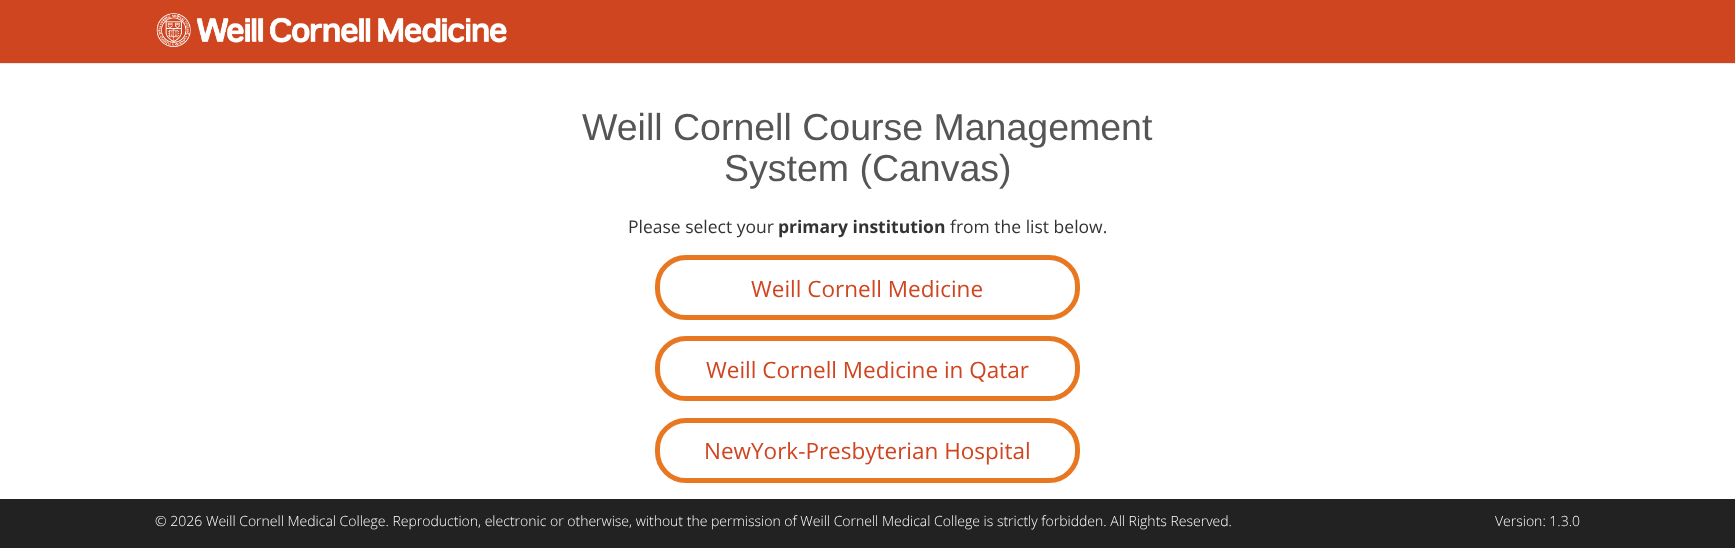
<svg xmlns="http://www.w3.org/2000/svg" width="1735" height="548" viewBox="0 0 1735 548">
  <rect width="100%" height="100%" fill="#fff"/>
  <path d="M0 0h1735v63H0z" fill="#cf4520"/>
  <path d="M0 63h1735v1H0z" fill="#e7e7e7"/>
  <image x="156" y="13" width="351" height="34" href="img/1.png"/>
  <rect x="657.5" y="257.5" width="420" height="60" rx="28.5" fill="none" stroke="#e87722" stroke-width="5"/>
  <rect x="657.5" y="338.5" width="420" height="60" rx="28.5" fill="none" stroke="#e87722" stroke-width="5"/>
  <rect x="657.5" y="420.5" width="420" height="60" rx="28.5" fill="none" stroke="#e87722" stroke-width="5"/>
  <path d="M0 499h1735v49H0z" fill="#222"/>
  <g font-family="Liberation Sans" font-size="37.5" fill="#555">
    <text x="582" y="140">Weill Cornell Course Management</text>
    <text x="724" y="181">System (Canvas)</text>
  </g>
  <text x="628" y="233" font-family="Open Sans" font-size="17.5" fill="#333">Please select your</text>
  <text x="778" y="233" font-family="Open Sans" font-size="17.5" font-weight="bold" fill="#333">primary institution</text>
  <text x="950" y="233" font-family="Open Sans" font-size="17.5" fill="#333">from the list below.</text>
  <g font-family="Open Sans" font-size="22.5" fill="#cf4520">
    <text x="751" y="297">Weill Cornell Medicine</text>
    <text x="706" y="378">Weill Cornell Medicine in Qatar</text>
    <text x="704" y="459">NewYork-Presbyterian Hospital</text>
  </g>
  <g font-family="Open Sans" font-size="14" font-weight="300" fill="#fff">
    <text x="155" y="526">© 2026 Weill Cornell Medical College. Reproduction, electronic or otherwise, without the permission of Weill Cornell Medical College is strictly forbidden. All Rights Reserved.</text>
    <text x="1495" y="526">Version: 1.3.0</text>
  </g>
</svg>
